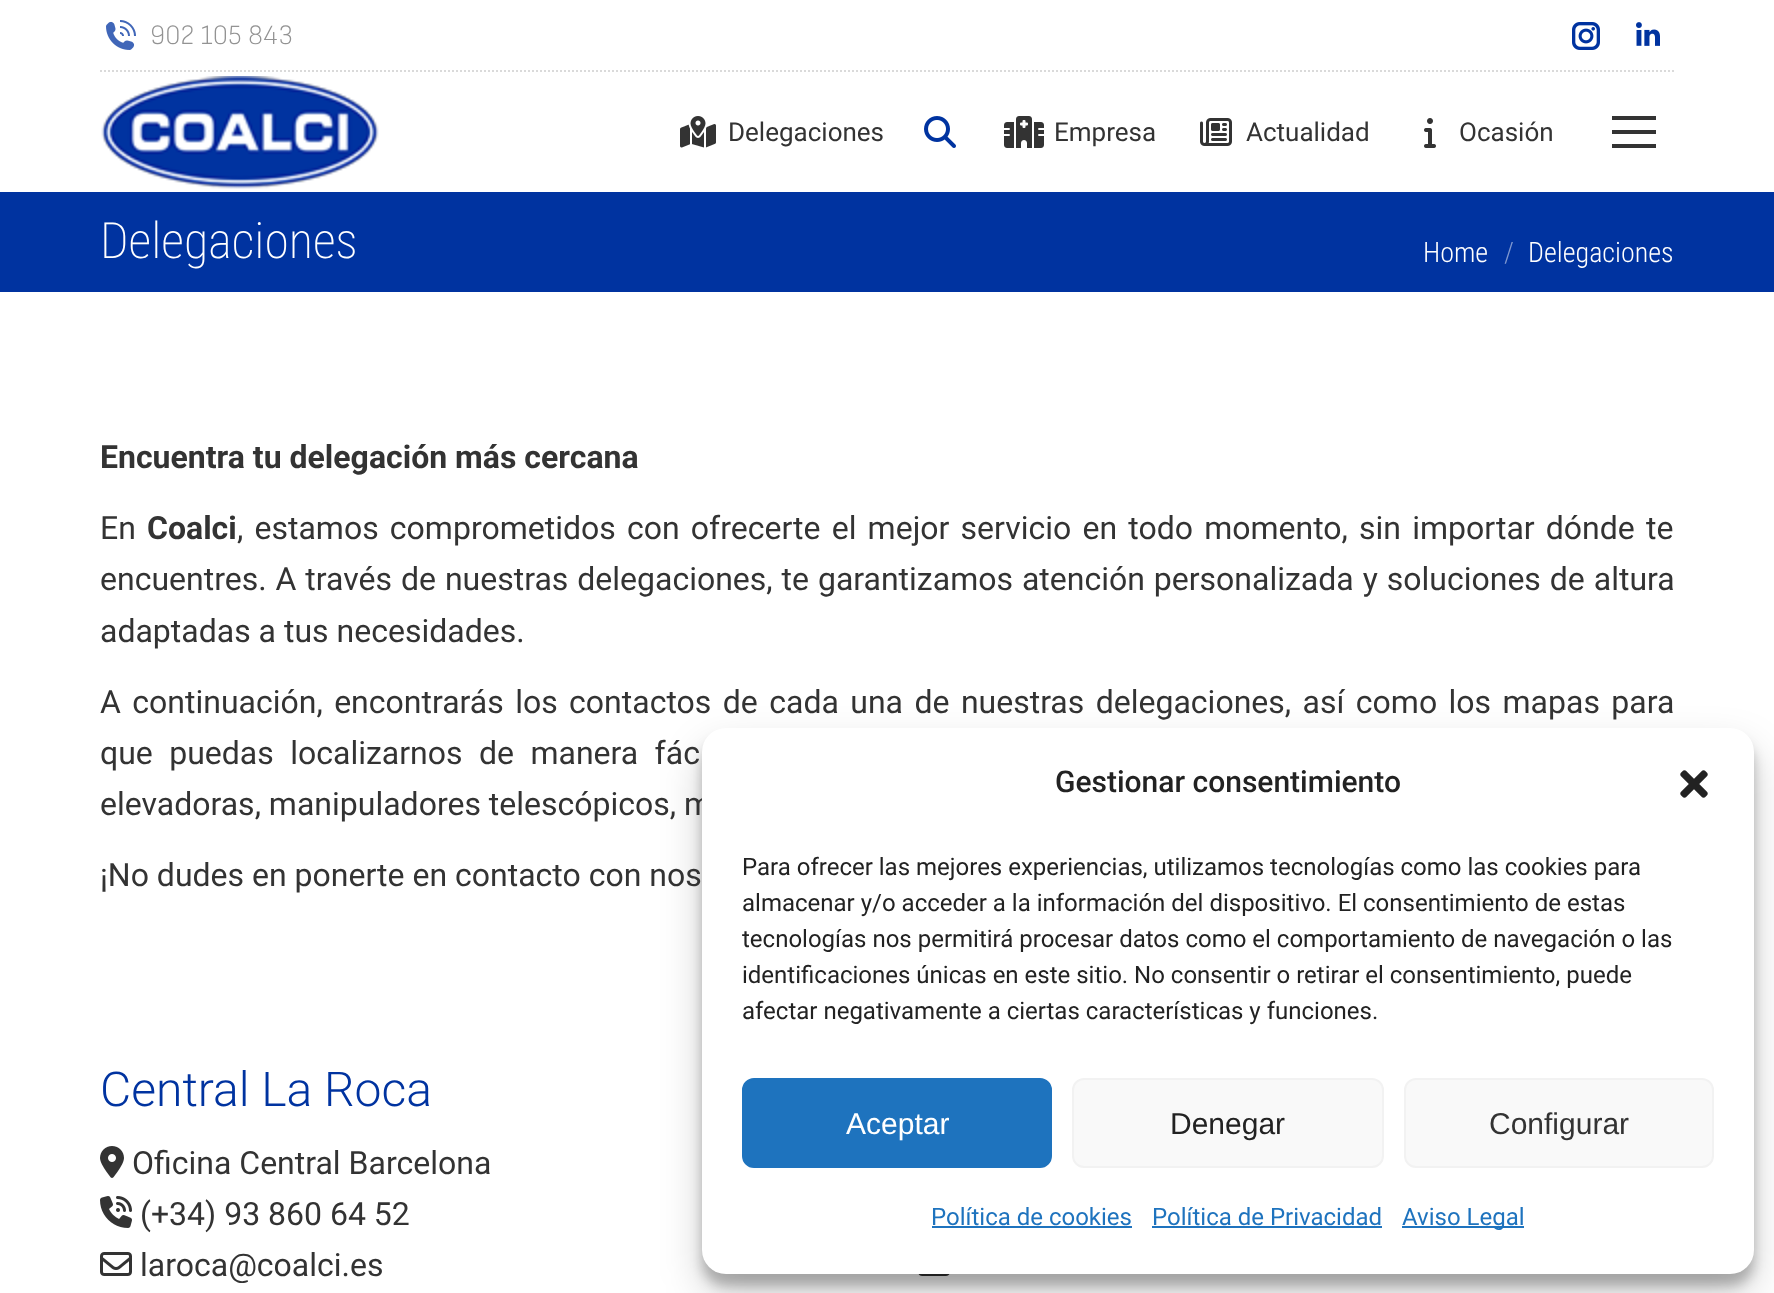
<svg xmlns="http://www.w3.org/2000/svg" width="1774" height="1293" viewBox="0 0 1774 1293">
  <rect width="100%" height="100%" fill="#fff"/>
  <image x="106" y="20" width="30" height="30" href="img/1.png"/>
  <image x="1572" y="22" width="28" height="28" href="img/2.png"/>
  <image x="1636" y="22" width="24" height="24" href="img/3.png"/>
  <path d="M100 71H1674" fill="none" stroke="#dadada" stroke-width="2" stroke-dasharray="2 2"/>
  <image x="101" y="76" width="278" height="113" href="img/4.png"/>
  <image x="680" y="116" width="36" height="32" href="img/5.png"/>
  <image x="924" y="116" width="32" height="32" href="img/6.png"/>
  <image x="1004" y="116" width="40" height="32" href="img/7.png"/>
  <image x="1200" y="118" width="32" height="28" href="img/8.png"/>
  <image x="1424" y="118" width="12" height="30" href="img/9.png"/>
  <path d="M1612 116h44v4H1612z" fill="#333"/>
  <path d="M1612 130h44v4H1612z" fill="#333"/>
  <path d="M1612 144h44v4H1612z" fill="#333"/>
  <path d="M0 192h1774v100H0z" fill="#0033a0"/>
  <image x="100" y="1146" width="24" height="32" href="img/10.png"/>
  <image x="100" y="1196" width="32" height="32" href="img/11.png"/>
  <image x="100" y="1252" width="32" height="24" href="img/12.png"/>
  <image x="918" y="1274" width="32" height="2" href="img/13.png"/>
  <rect x="702" y="740" width="1052" height="546" rx="24" fill="#0000003b" filter="blur(6px)"/>
  <rect x="702" y="748" width="1052" height="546" rx="24" fill="#00000030" filter="blur(20px)"/>
  <text x="150" y="44" font-family="Sofia Sans Semi Condensed" font-size="28" font-weight="300" fill="#939393">902 105 843</text>
  <g font-family="Roboto" font-size="26" fill="#333">
    <text x="728" y="141">Delegaciones</text>
    <text x="1054" y="141">Empresa</text>
    <text x="1246" y="141">Actualidad</text>
    <text x="1459" y="141">Ocasión</text>
  </g>
  <text x="100" y="258" font-family="Roboto Condensed" font-size="50" font-weight="200" fill="#fff">Delegaciones</text>
  <text x="1423" y="262" font-family="Roboto Condensed" font-size="28" font-weight="300" fill="#fff">Home</text>
  <text x="1504" y="262" font-family="Roboto Condensed" font-size="28" font-weight="300" fill="#8099d0">/</text>
  <text x="1528" y="262" font-family="Roboto Condensed" font-size="28" font-weight="300" fill="#fff">Delegaciones</text>
  <text x="100" y="468" font-family="Roboto" font-size="32" font-weight="bold" fill="#333">Encuentra tu delegación más cercana</text>
  <text x="100" y="539" font-family="Roboto" font-size="32" fill="#333">En</text>
  <text x="147" y="539" font-family="Roboto" font-size="32" font-weight="bold" fill="#333">Coalci</text>
  <g font-family="Roboto" font-size="32" fill="#333">
    <text x="237" y="539" word-spacing="3.25">, estamos comprometidos con ofrecerte el mejor servicio en todo momento, sin importar dónde te</text>
    <text x="100" y="590" word-spacing="1">encuentres. A través de nuestras delegaciones, te garantizamos atención personalizada y soluciones de altura</text>
    <text x="100" y="642">adaptadas a tus necesidades.</text>
    <text x="100" y="713" word-spacing="3.5">A continuación, encontrarás los contactos de cada una de nuestras delegaciones, así como los mapas para</text>
    <text x="100" y="764" word-spacing="8.5">que puedas localizarnos de manera fác</text>
    <text x="100" y="815">elevadoras, manipuladores telescópicos, m</text>
    <text x="100" y="886">¡No dudes en ponerte en contacto con nos</text>
  </g>
  <text x="100" y="1106" font-family="Roboto" font-size="48" font-weight="300" fill="#0033a0">Central La Roca</text>
  <g font-family="Roboto" font-size="32" fill="#333">
    <text x="132" y="1174">Oficina Central Barcelona</text>
    <text x="140" y="1225">(+34) 93 860 64 52</text>
    <text x="140" y="1276">laroca@coalci.es</text>
  </g>
  <rect x="702" y="728" width="1052" height="546" rx="24" fill="#fff"/>
  <text x="1055" y="792" font-family="Roboto" font-size="30" font-weight="500" fill="#222">Gestionar consentimiento</text>
  <image x="1680" y="770" width="28" height="28" href="img/14.png"/>
  <g font-family="Roboto" font-size="24" fill="#222">
    <text x="742" y="875">Para ofrecer las mejores experiencias, utilizamos tecnologías como las cookies para</text>
    <text x="742" y="911">almacenar y/o acceder a la información del dispositivo. El consentimiento de estas</text>
    <text x="742" y="947">tecnologías nos permitirá procesar datos como el comportamiento de navegación o las</text>
    <text x="742" y="983">identificaciones únicas en este sitio. No consentir o retirar el consentimiento, puede</text>
    <text x="742" y="1019">afectar negativamente a ciertas características y funciones.</text>
  </g>
  <rect x="743" y="1079" width="308" height="88" rx="11" fill="#1e73be" stroke="#1e73be" stroke-width="2"/>
  <text x="846" y="1134" font-family="Liberation Sans" font-size="30" fill="#fff">Aceptar</text>
  <rect x="1073" y="1079" width="310" height="88" rx="11" fill="#f9f9f9" stroke="#f2f2f2" stroke-width="2"/>
  <text x="1170" y="1134" font-family="Liberation Sans" font-size="30" fill="#222">Denegar</text>
  <rect x="1405" y="1079" width="308" height="88" rx="11" fill="#f9f9f9" stroke="#f2f2f2" stroke-width="2"/>
  <text x="1489" y="1134" font-family="Liberation Sans" font-size="30" fill="#333">Configurar</text>
  <text x="931" y="1225" font-family="Roboto" font-size="24" fill="#1e73be">Política de cookies</text>
  <path d="M932 1226h200v2H932z" fill="#1e73be"/>
  <text x="1152" y="1225" font-family="Roboto" font-size="24" fill="#1e73be">Política de Privacidad</text>
  <path d="M1152 1226h230v2H1152z" fill="#1e73be"/>
  <path d="M1402 1226h122v2H1402z" fill="#1e73be"/>
  <text x="1402" y="1225" font-family="Roboto" font-size="24" fill="#1e73be">Aviso Legal</text>
</svg>
